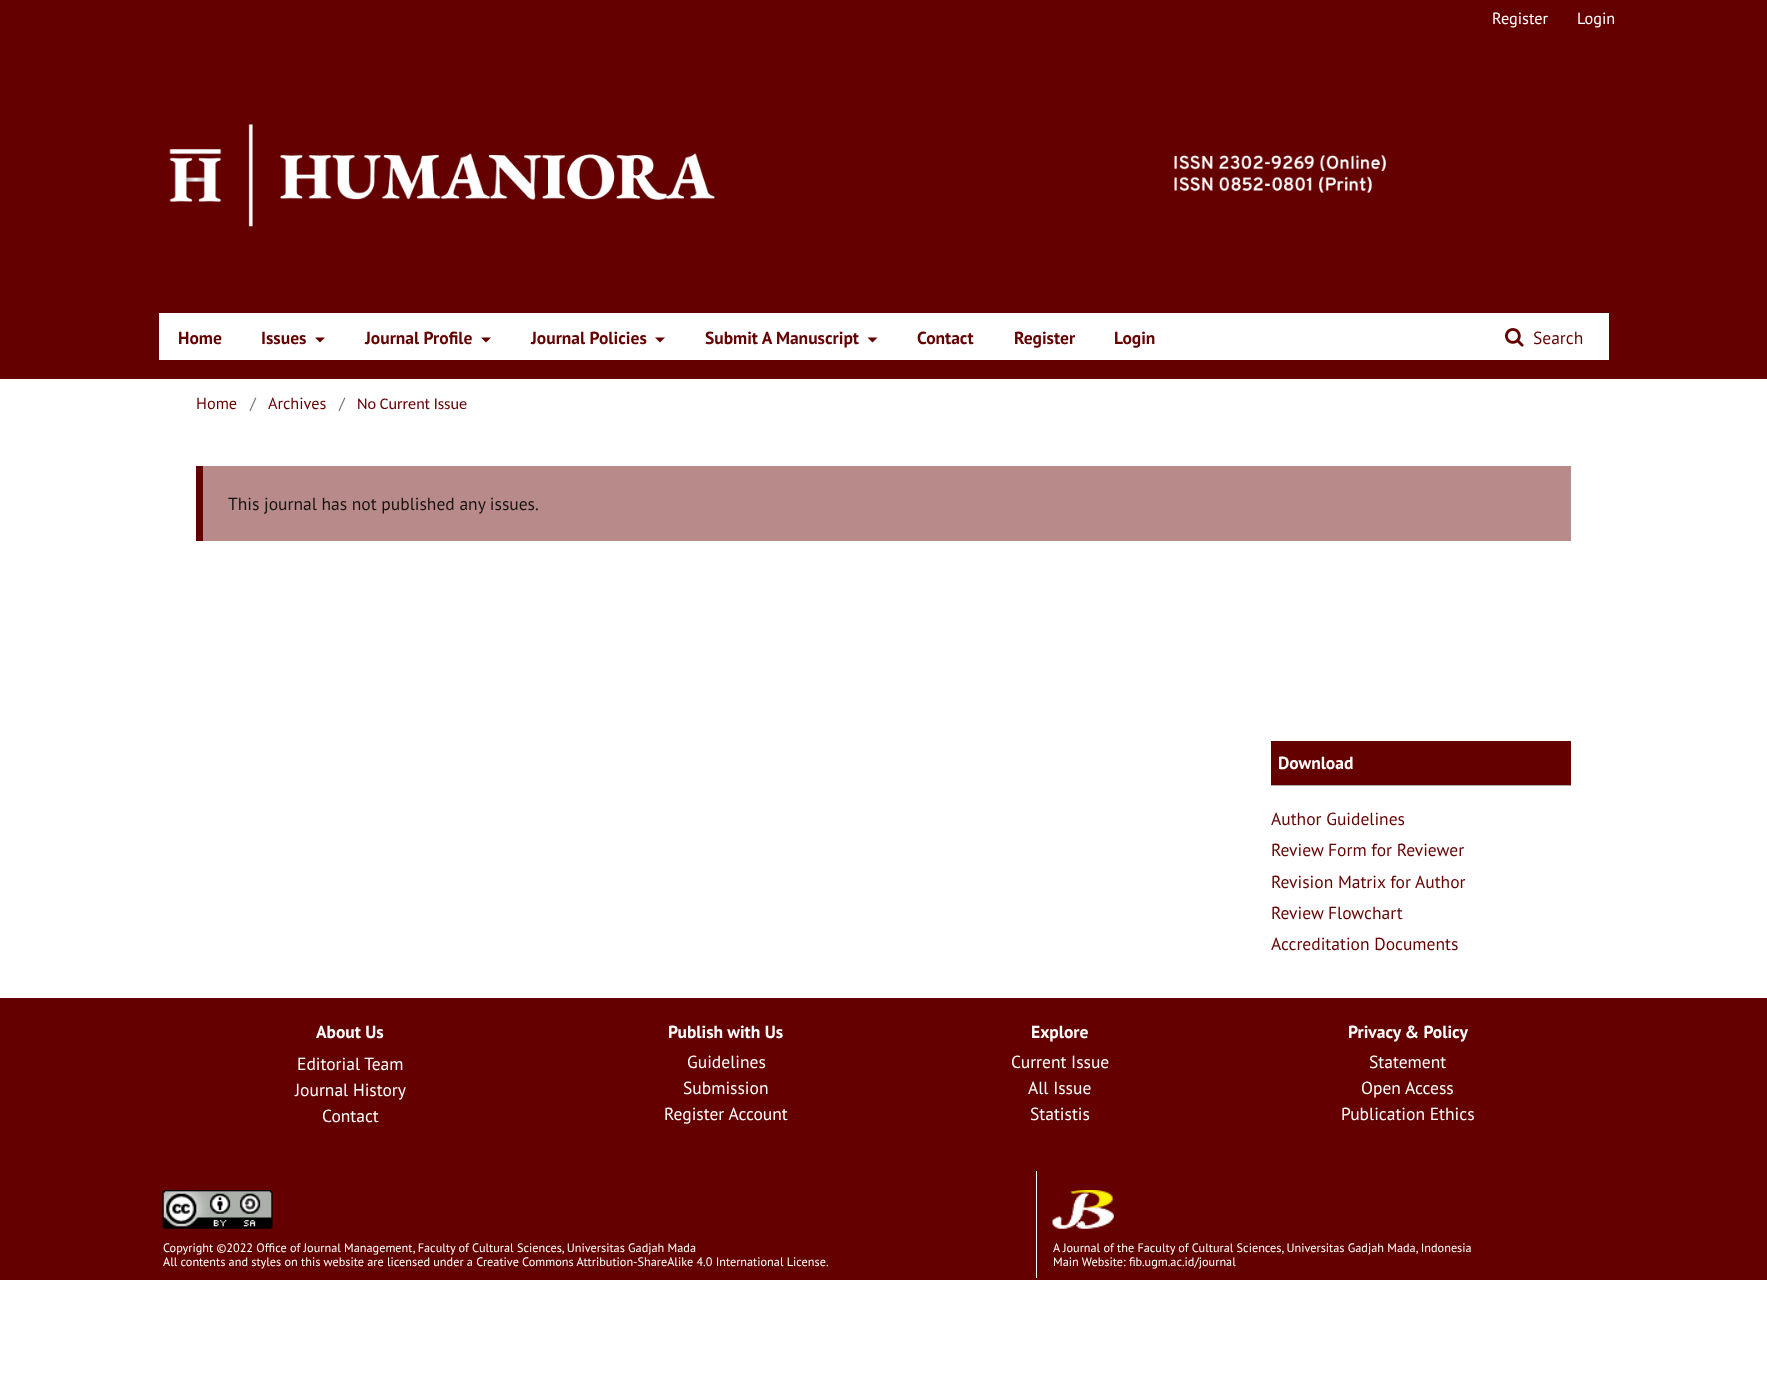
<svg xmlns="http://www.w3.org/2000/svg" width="1767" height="1376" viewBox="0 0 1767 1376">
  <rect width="100%" height="100%" fill="#fff"/>
  <path d="M0 0h1767v379H0z" fill="#640000"/>
  <image x="169" y="124" width="1217" height="103" href="img/1.png"/>
  <path d="M159 313h1450v47H159z" fill="#fff"/>
  <path d="M315 337.5H325L320 342.5Z" fill="#640000"/>
  <path d="M481 337.5H491L486 342.5Z" fill="#640000"/>
  <path d="M655 337.5H665L660 342.5Z" fill="#640000"/>
  <path d="M867.5 337.5H877.5L872.5 342.5Z" fill="#640000"/>
  <image x="1505" y="328" width="19" height="19" href="img/2.png"/>
  <path d="M203 466h1368v75H203z" fill="#b88a8a"/>
  <path d="M196 466h7v75H196z" fill="#640000"/>
  <path d="M1271 741h300v44H1271z" fill="#640000"/>
  <path d="M1271 785h300v1H1271z" fill="#aaa"/>
  <path d="M0 998h1767v282H0z" fill="#640000"/>
  <path d="M1036 1171h1v107H1036z" fill="#fff"/>
  <image x="162" y="1190" width="111" height="39" href="img/3.png"/>
  <image x="1052" y="1190" width="62" height="39" href="img/4.png"/>
  <g font-family="PT Sans" font-size="16.25" fill="#fff">
    <text x="1492" y="24">Register</text>
    <text x="1577" y="24">Login</text>
  </g>
  <g font-family="PT Sans" font-size="17.5" font-weight="bold" fill="#640000">
    <text x="178" y="344">Home</text>
    <text x="261" y="344">Issues</text>
    <text x="365" y="344">Journal Profile</text>
    <text x="531" y="344">Journal Policies</text>
    <text x="705" y="344">Submit A Manuscript</text>
    <text x="917" y="344">Contact</text>
    <text x="1014" y="344">Register</text>
    <text x="1114" y="344">Login</text>
  </g>
  <text x="1533" y="344" font-family="PT Sans" font-size="17.5" fill="#640000">Search</text>
  <text x="196" y="409" font-family="PT Sans" font-size="16.25" fill="#640000">Home</text>
  <text x="250" y="409" font-family="PT Sans" font-size="16.25" fill="#757575">/</text>
  <text x="268" y="409" font-family="PT Sans" font-size="16.25" fill="#640000">Archives</text>
  <text x="339" y="409" font-family="PT Sans" font-size="16.25" fill="#757575">/</text>
  <text x="357" y="409" font-family="Carlito" font-size="16.25" fill="#640000">No Current Issue</text>
  <text x="228" y="510" font-family="PT Sans" font-size="17.5" fill="#181212">This journal has not published any issues.</text>
  <text x="1278" y="769" font-family="PT Sans" font-size="17.5" font-weight="bold" fill="#fff">Download</text>
  <g font-family="PT Sans" font-size="17.5" fill="#640000">
    <text x="1271" y="825">Author Guidelines</text>
    <text x="1271" y="856">Review Form for Reviewer</text>
    <text x="1271" y="888">Revision Matrix for Author</text>
    <text x="1271" y="919">Review Flowchart</text>
    <text x="1271" y="950">Accreditation Documents</text>
  </g>
  <text x="316" y="1038" font-family="PT Sans" font-size="17.5" font-weight="bold" fill="#fff">About Us</text>
  <g font-family="PT Sans" font-size="17.5" fill="#fff">
    <text x="297" y="1070">Editorial Team</text>
    <text x="295" y="1096">Journal History</text>
    <text x="322" y="1122">Contact</text>
  </g>
  <text x="668" y="1038" font-family="PT Sans" font-size="17.5" font-weight="bold" fill="#fff">Publish with Us</text>
  <g font-family="PT Sans" font-size="17.5" fill="#fff">
    <text x="687" y="1068">Guidelines</text>
    <text x="683" y="1094">Submission</text>
    <text x="664" y="1120">Register Account</text>
  </g>
  <text x="1031" y="1038" font-family="PT Sans" font-size="17.5" font-weight="bold" fill="#fff">Explore</text>
  <g font-family="PT Sans" font-size="17.5" fill="#fff">
    <text x="1011" y="1068">Current Issue</text>
    <text x="1028" y="1094">All Issue</text>
    <text x="1030" y="1120">Statistis</text>
  </g>
  <text x="1348" y="1038" font-family="PT Sans" font-size="17.5" font-weight="bold" fill="#fff">Privacy &amp; Policy</text>
  <g font-family="PT Sans" font-size="17.5" fill="#fff">
    <text x="1369" y="1068">Statement</text>
    <text x="1361" y="1094">Open Access</text>
    <text x="1341" y="1120">Publication Ethics</text>
  </g>
  <g font-family="PT Sans" font-size="12.25" fill="#fff">
    <text x="163" y="1252">Copyright ©2022 Office of Journal Management, Faculty of Cultural Sciences, Universitas Gadjah Mada</text>
    <text x="163" y="1266">All contents and styles on this website are licensed under a Creative Commons Attribution-ShareAlike 4.0 International License.</text>
    <text x="1053" y="1252">A Journal of the Faculty of Cultural Sciences, Universitas Gadjah Mada, Indonesia</text>
    <text x="1053" y="1266">Main Website: fib.ugm.ac.id/journal</text>
  </g>
</svg>
